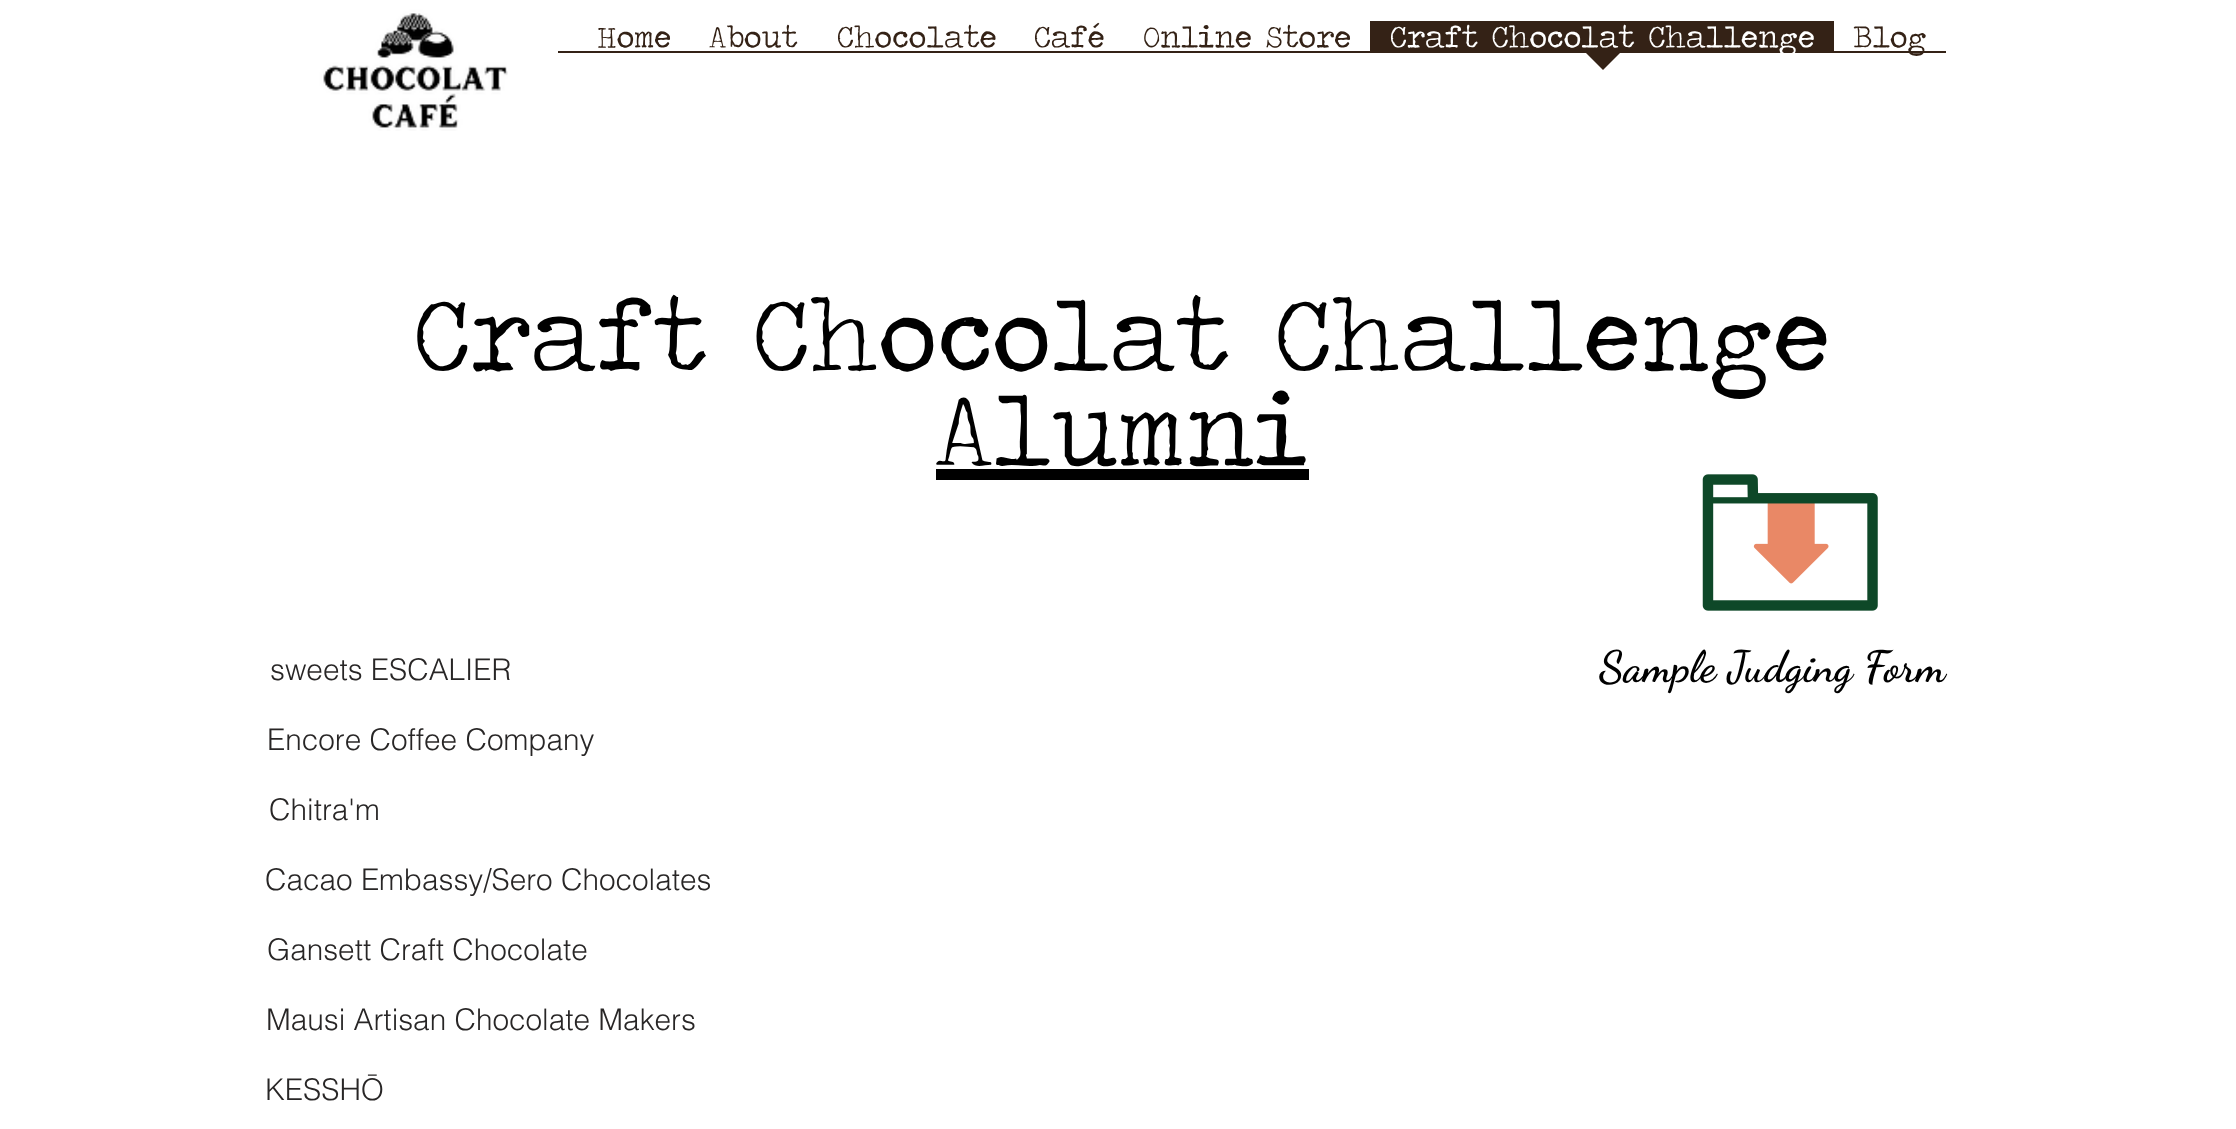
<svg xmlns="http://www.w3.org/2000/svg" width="2236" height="1129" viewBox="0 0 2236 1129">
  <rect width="100%" height="100%" fill="#fff"/>
  <image x="298" y="0" width="210" height="131" href="img/1.png"/>
  <path d="M1370 21h464v30H1370z" fill="#342216"/>
  <path d="M558 51h1388v2H558z" fill="#342216"/>
  <path d="M1584 51H1622L1603 70Z" fill="#342216"/>
  <path d="M936 469h373v11H936z" fill="#000"/>
  <image x="1702" y="474" width="176" height="137" href="img/2.png"/>
  <g font-family="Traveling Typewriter" font-size="31.5" fill="#342216">
    <text x="597" y="47">Home</text>
    <text x="709" y="47">About</text>
    <text x="837" y="47">Chocolate</text>
    <text x="1034" y="47">Café</text>
    <text x="1143" y="47">Online Store</text>
  </g>
  <text x="1390" y="47" font-family="Traveling Typewriter" font-size="31.5" fill="#fff">Craft Chocolat Challenge</text>
  <text x="1853" y="47" font-family="Traveling Typewriter" font-size="31.5" fill="#342216">Blog</text>
  <g font-family="Traveling Typewriter" font-size="105" fill="#000">
    <text x="414" y="369">Craft Chocolat Challenge</text>
    <text x="935" y="464">Alumni</text>
  </g>
  <text x="270" y="680" font-family="helvetica" font-size="29.75" font-weight="300" fill="#282626">sweets ESCALIER</text>
  <text x="1599" y="681" font-family="Dancing Script" font-size="43.75" font-weight="bold" fill="#000">Sample Judging Form</text>
  <g font-family="helvetica" font-size="29.75" font-weight="300" fill="#282626">
    <text x="267" y="750">Encore Coffee Company</text>
    <text x="269" y="820">Chitra'm</text>
    <text x="265" y="890">Cacao Embassy/Sero Chocolates</text>
    <text x="267" y="960">Gansett Craft Chocolate</text>
    <text x="266" y="1030">Mausi Artisan Chocolate Makers</text>
    <text x="265" y="1100">KESSHŌ</text>
  </g>
</svg>
